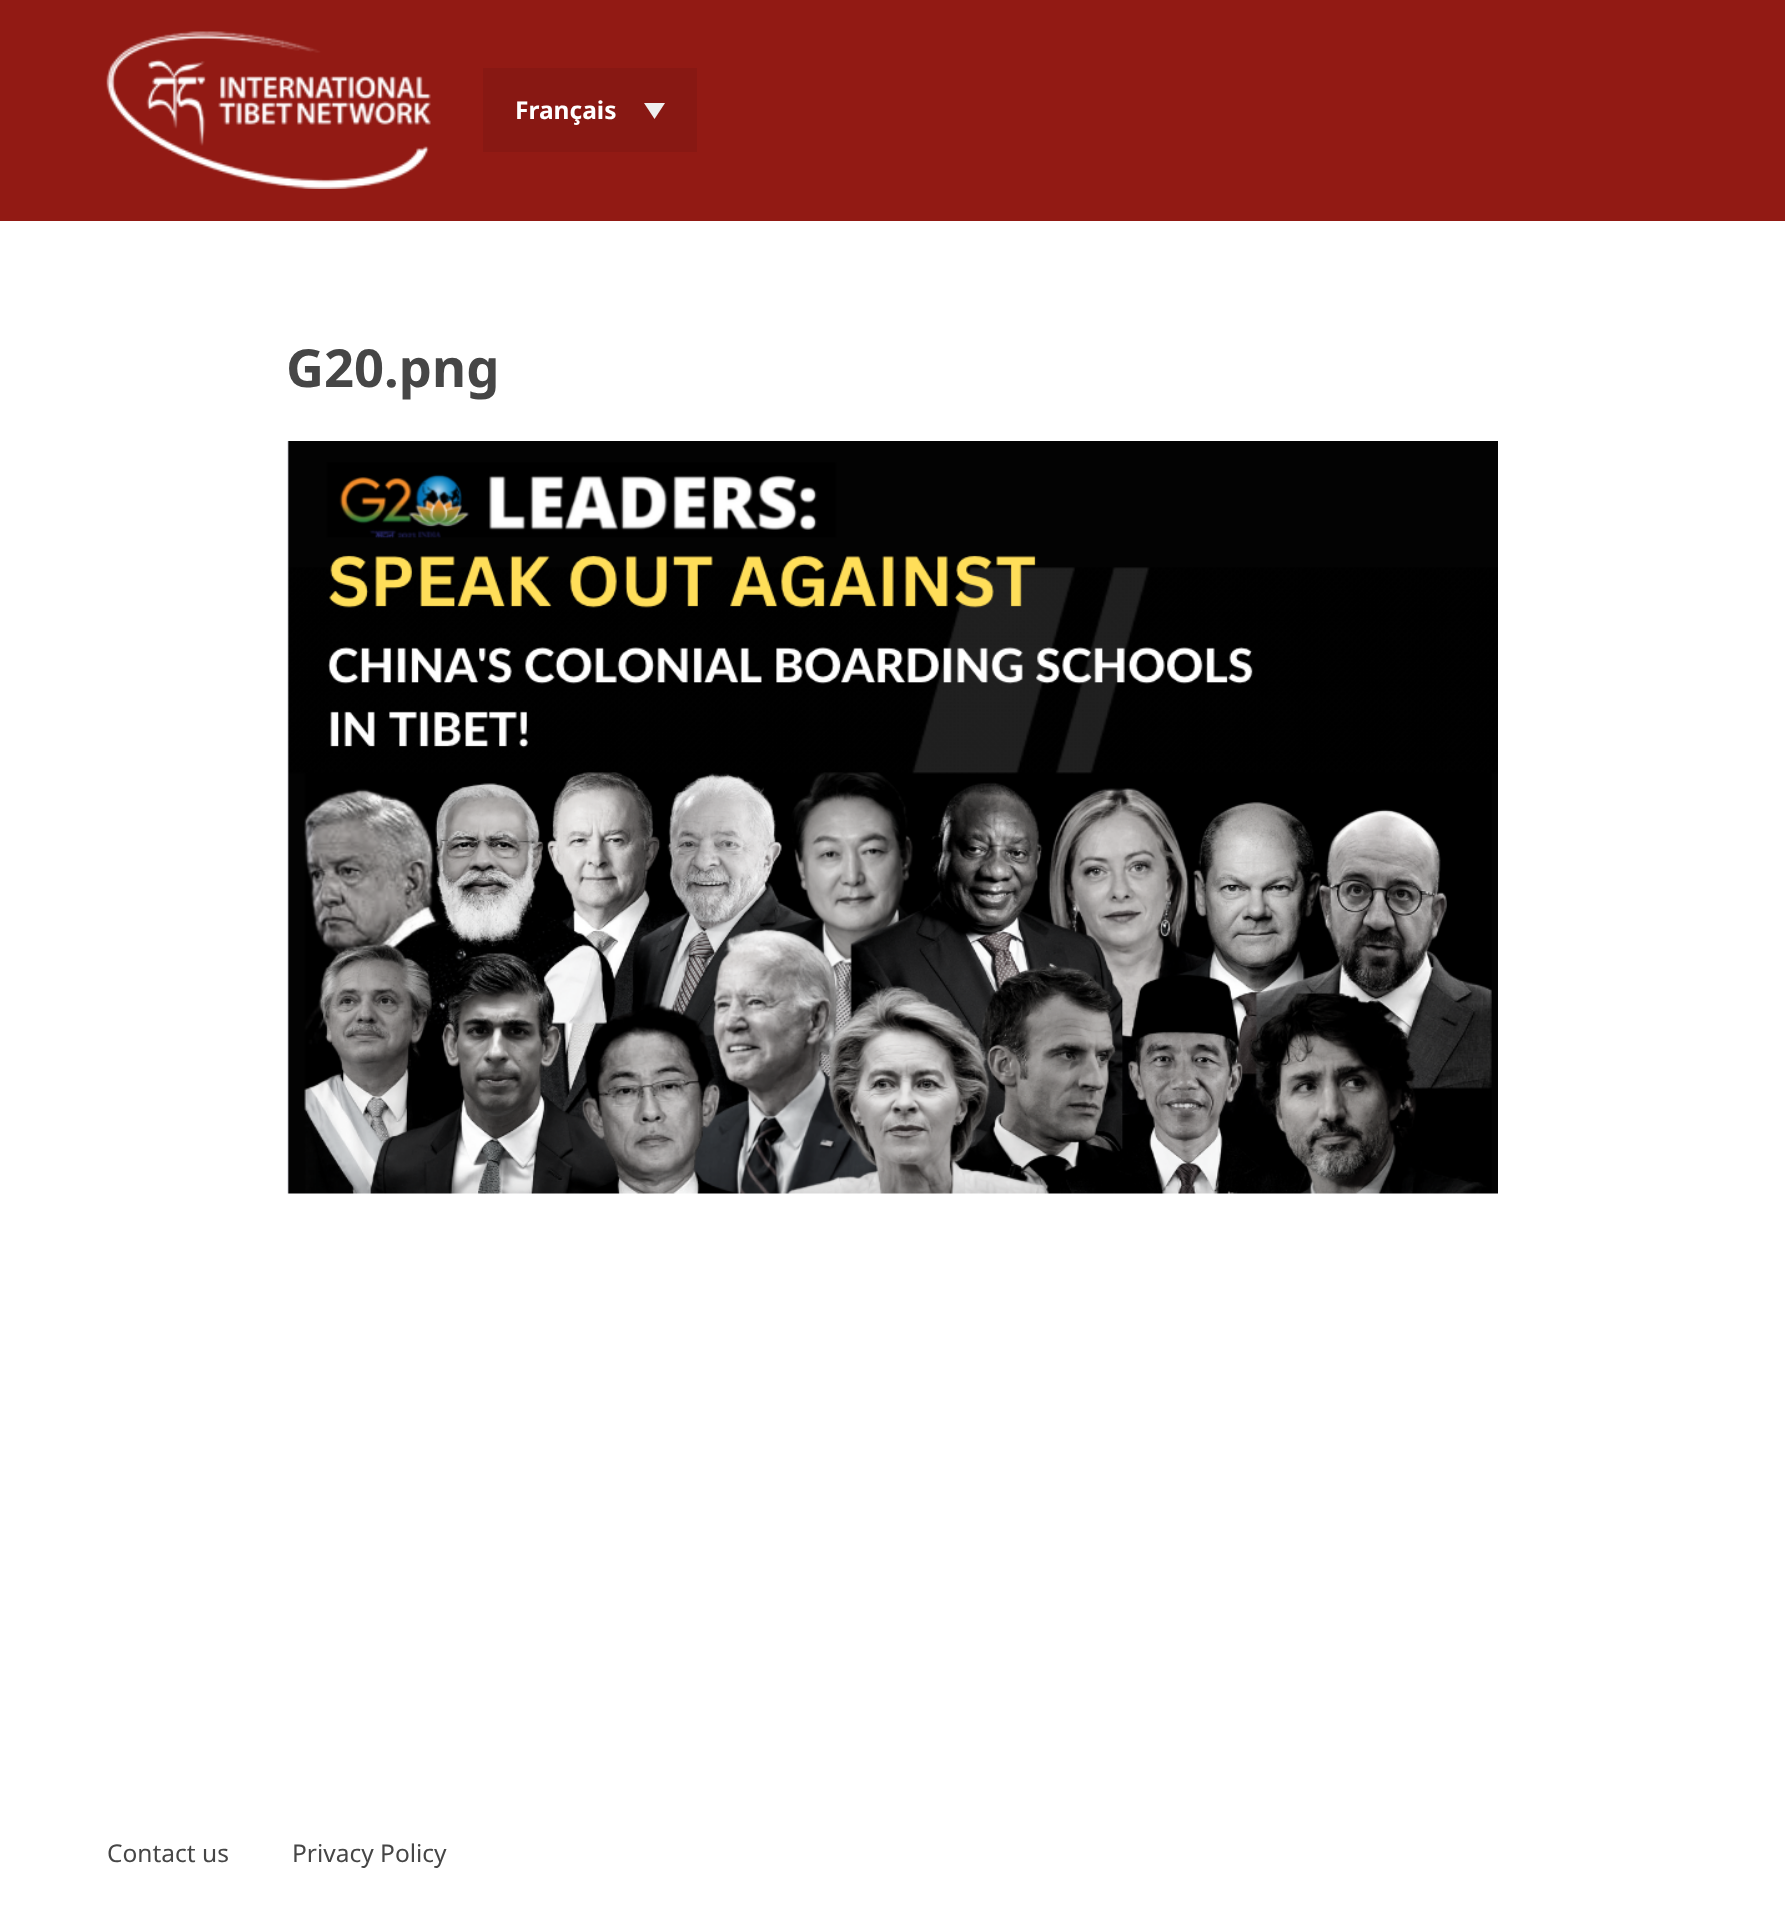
<svg xmlns="http://www.w3.org/2000/svg" width="1785" height="1932" viewBox="0 0 1785 1932">
  <rect width="100%" height="100%" fill="#fff"/>
  <path d="M0 0h1785v221H0z" fill="#921a14"/>
  <image x="106" y="31" width="325" height="158" href="img/1.png"/>
  <path d="M483 68h214v84H483z" fill="#881813"/>
  <path d="M644 103H665L654.5 119Z" fill="#efefef"/>
  <image x="287" y="441" width="1211" height="753" href="img/2.png"/>
  <text x="515" y="119" font-family="Noto Sans" font-size="24.5" font-weight="bold" fill="#fff">Français</text>
  <text x="286" y="387" font-family="Noto Sans" font-size="52.5" font-weight="bold" fill="#464646">G20.png</text>
  <g font-family="Noto Sans" font-size="24.5" fill="#464646">
    <text x="107" y="1862">Contact us</text>
    <text x="292" y="1862">Privacy Policy</text>
  </g>
</svg>
